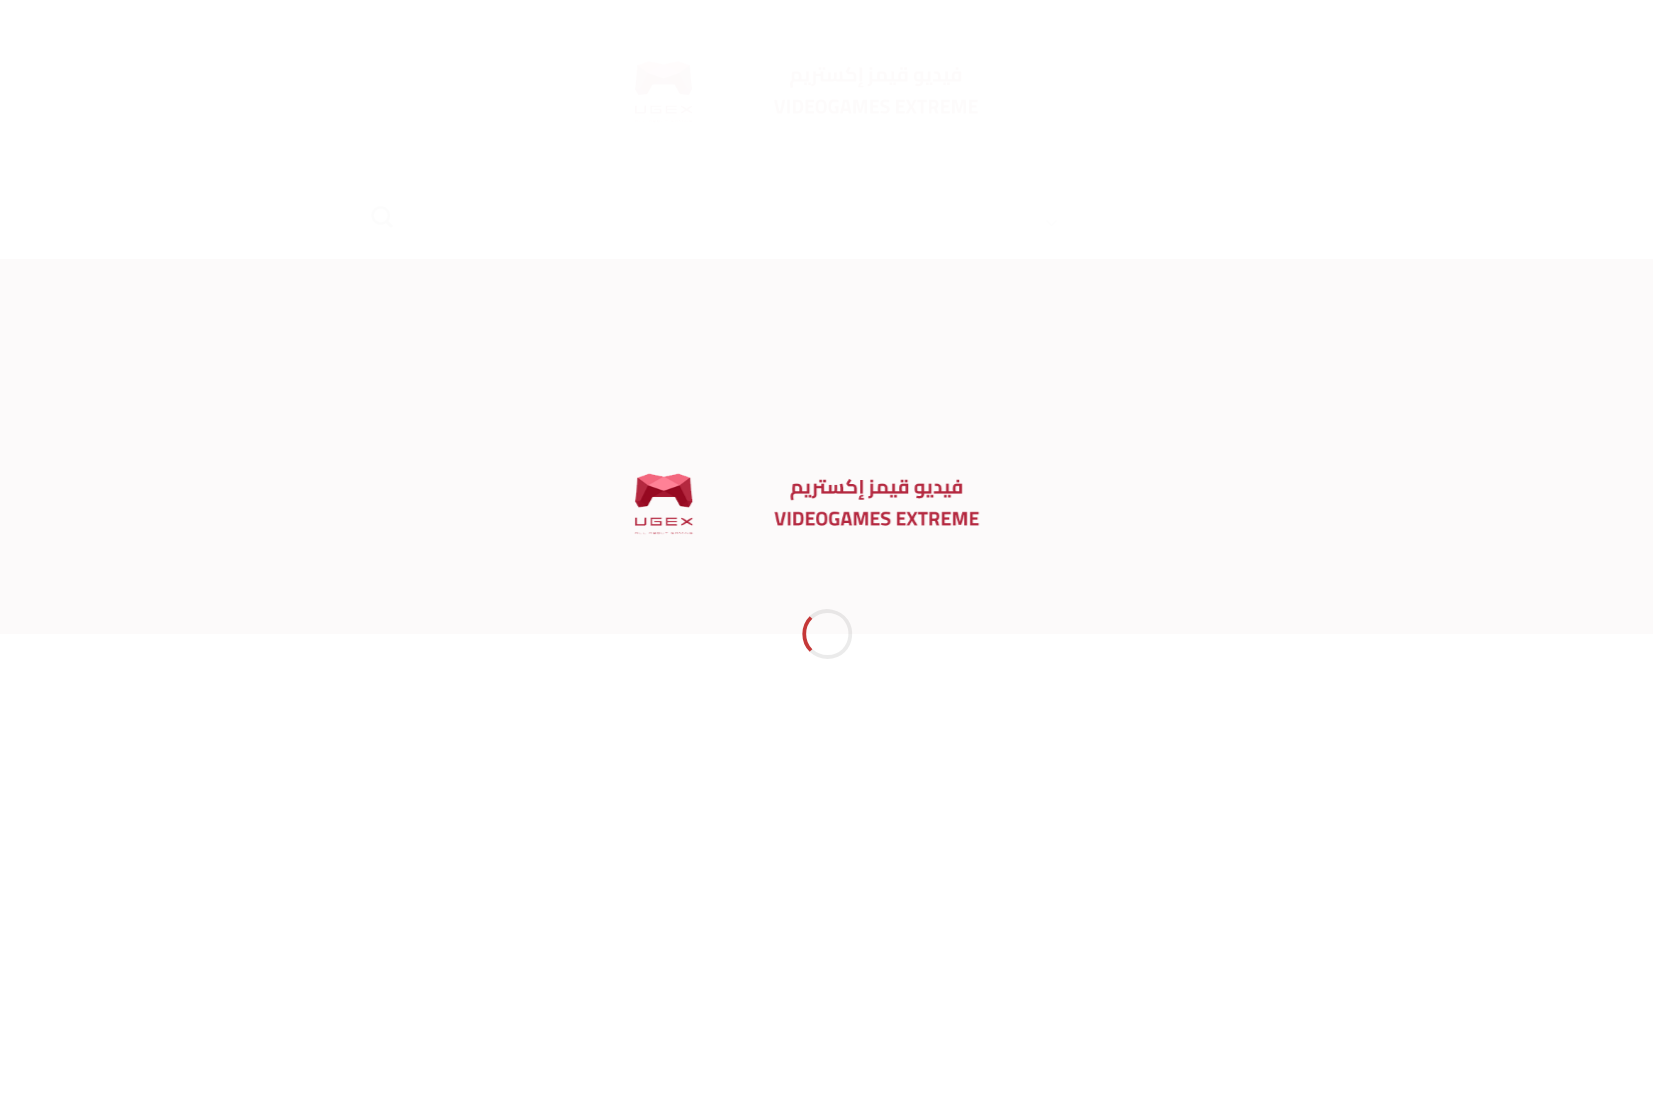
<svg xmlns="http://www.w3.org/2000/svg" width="1653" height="1100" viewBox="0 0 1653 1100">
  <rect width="100%" height="100%" fill="#fff"/>
  <image x="634" y="61" width="345" height="62" href="img/1.png"/>
  <image x="371" y="206" width="22" height="22" href="img/2.png"/>
  <image x="1046" y="219" width="11" height="8" href="img/3.png"/>
  <path d="M0 259h1653v375H0z" fill="#fcfafa"/>
  <image x="634" y="473" width="346" height="62" href="img/4.png"/>
  <path d="M811 617.5C816.5 612.5 824.5 610 832 611.5C859 617 855 657 827.5 657C821.5 657 815.5 654.5 811 650.5" fill="none" stroke="#00000014" stroke-width="3.8"/>
  <path d="M811 650.5C802 641.5 802 626.5 811 617.5" fill="none" stroke="#b50000c7" stroke-width="3.8"/>
</svg>
